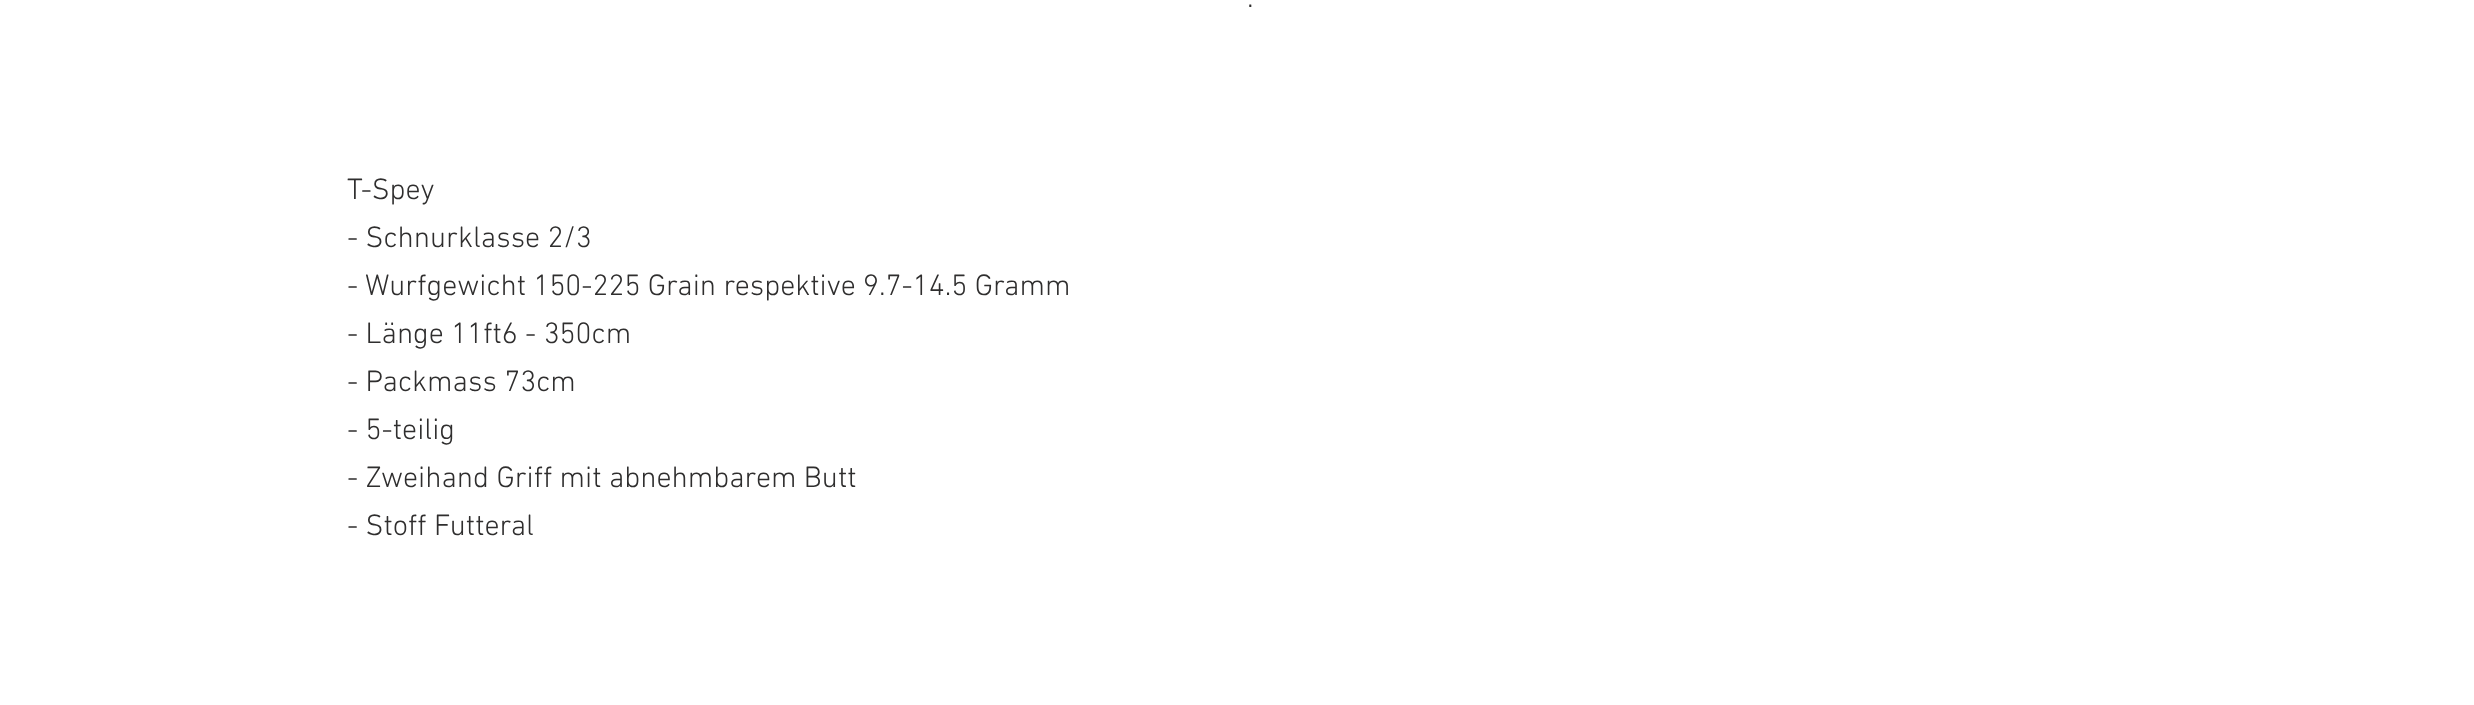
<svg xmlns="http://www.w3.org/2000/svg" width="2474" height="705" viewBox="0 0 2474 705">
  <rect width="100%" height="100%" fill="#fff"/>
  <g font-family="'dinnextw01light'" font-size="30" font-weight="300" fill="#2f2e2e">
    <text x="1247" y="7">.</text>
    <text x="347" y="199">T-Spey</text>
    <text x="347" y="247">- Schnurklasse 2/3</text>
    <text x="347" y="295">- Wurfgewicht 150-225 Grain respektive 9.7-14.5 Gramm</text>
    <text x="347" y="343">- Länge 11ft6 - 350cm</text>
    <text x="347" y="391">- Packmass 73cm</text>
    <text x="347" y="439">- 5-teilig</text>
    <text x="347" y="487">- Zweihand Griff mit abnehmbarem Butt</text>
    <text x="347" y="535">- Stoff Futteral</text>
  </g>
</svg>
